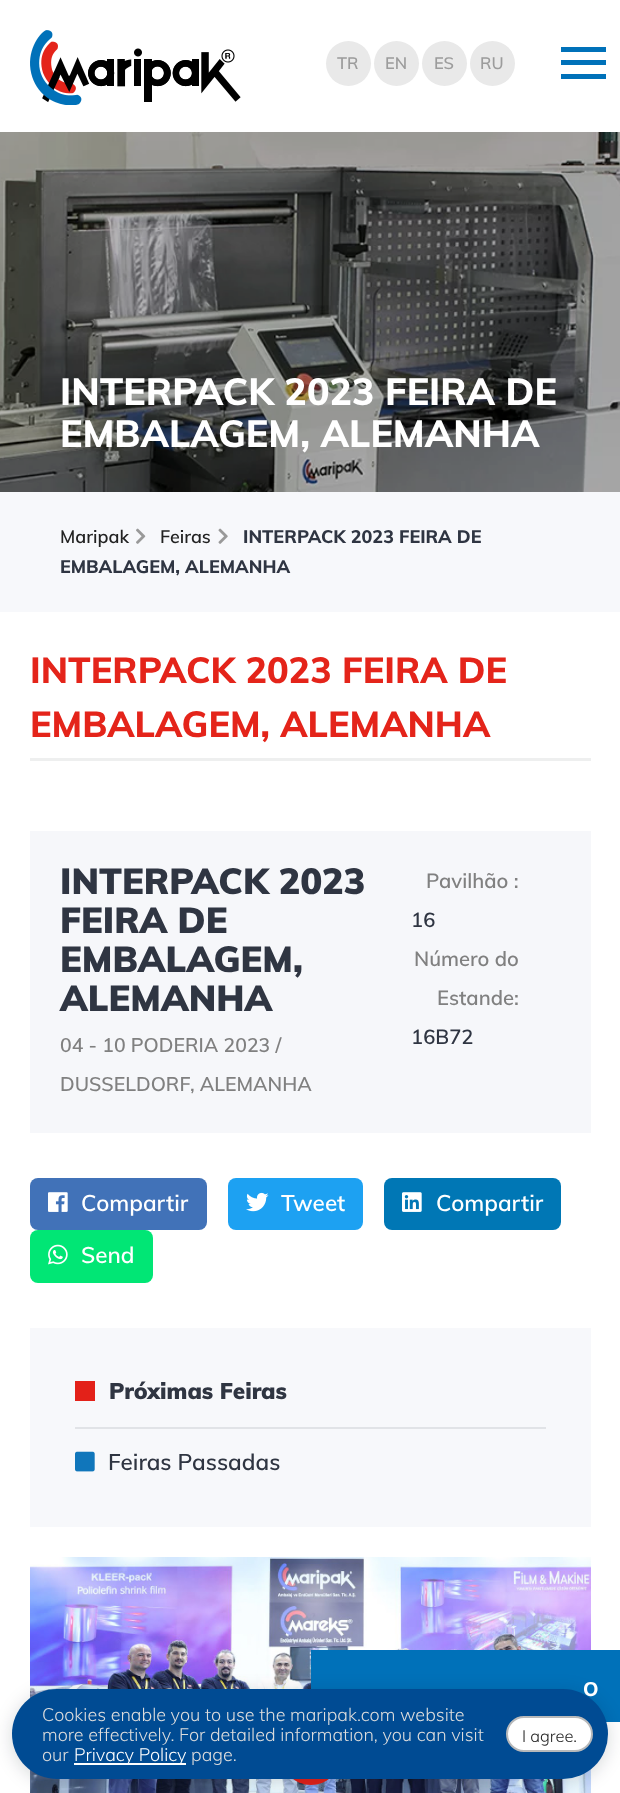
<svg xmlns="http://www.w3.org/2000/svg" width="620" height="1793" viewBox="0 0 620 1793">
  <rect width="100%" height="100%" fill="#fff"/>
  <path d="M558 47h48v5H558z" fill="#0071b9"/>
  <path d="M558 60h48v5H558z" fill="#0071b9"/>
  <path d="M558 74h48v5H558z" fill="#0071b9"/>
  <path d="M558 47h3v32H558z" fill="#fff"/>
  <image x="30" y="30" width="211" height="75" href="img/1.png"/>
  <circle cx="348.5" cy="63.5" r="22.5" fill="#e9e9e9"/>
  <circle cx="396.5" cy="63.5" r="22.5" fill="#e9e9e9"/>
  <circle cx="444.5" cy="63.5" r="22.5" fill="#e9e9e9"/>
  <circle cx="492.5" cy="63.5" r="22.5" fill="#e9e9e9"/>
  <image x="0" y="132" width="620" height="360" href="img/2.png"/>
  <path d="M0 492h620v120H0z" fill="#f7f8fb"/>
  <image x="136" y="528" width="10" height="16" href="img/3.png"/>
  <image x="218" y="528" width="10" height="16" href="img/4.png"/>
  <path d="M30 758h561v3H30z" fill="#eeefef"/>
  <path d="M30 831h561v302H30z" fill="#f6f7fa"/>
  <rect x="30" y="1178" width="177" height="52" rx="8" fill="#4172b8"/>
  <image x="48" y="1192" width="20" height="20" href="img/5.png"/>
  <rect x="228" y="1178" width="135" height="52" rx="8" fill="#1da1f2"/>
  <image x="246" y="1192" width="23" height="20" href="img/6.png"/>
  <rect x="384" y="1178" width="177" height="52" rx="8" fill="#0077b5"/>
  <image x="402" y="1192" width="20" height="20" href="img/7.png"/>
  <rect x="30" y="1230" width="123" height="53" rx="8" fill="#01e675"/>
  <image x="48" y="1244" width="20" height="21" href="img/8.png"/>
  <path d="M30 1328h561v199H30z" fill="#f7f8fb"/>
  <path d="M75 1427h471v2H75z" fill="#e1e3e7"/>
  <path d="M75 1381h20v20H75z" fill="#e32119"/>
  <image x="75" y="1451" width="20" height="21" href="img/9.png"/>
  <image x="30" y="1557" width="561" height="236" href="img/10.png"/>
  <circle cx="311" cy="1755" r="30" fill="#e32119"/>
  <path d="M311 1650h309v8H311z" fill="#0071b9"/>
  <path d="M614 1650h6v72H614z" fill="#0071b9"/>
  <path d="M311 1650h7v39H311z" fill="#0071b9"/>
  <path d="M318 1658h296v64H318z" fill="#0071b9"/>
  <rect x="12" y="1692" width="596" height="90" rx="45" fill="#040c1a29" filter="blur(9px)"/>
  <g font-family="Muli" font-size="16.5" font-weight="600" fill="#9c9c9c">
    <text x="337" y="69">TR</text>
    <text x="385" y="69">EN</text>
    <text x="434" y="69">ES</text>
    <text x="480" y="69">RU</text>
  </g>
  <g font-family="Muli" font-size="37.5" font-weight="800" fill="#fff">
    <text x="60" y="405">INTERPACK 2023 FEIRA DE</text>
    <text x="60" y="447">EMBALAGEM, ALEMANHA</text>
  </g>
  <g font-family="Muli" font-size="18" font-weight="600" fill="#222">
    <text x="60" y="543">Maripak</text>
    <text x="160" y="543">Feiras</text>
  </g>
  <g font-family="Muli" font-size="18" font-weight="800" fill="#2f3542">
    <text x="243" y="543">INTERPACK 2023 FEIRA DE</text>
    <text x="60" y="573">EMBALAGEM, ALEMANHA</text>
  </g>
  <g font-family="Muli" font-size="36" font-weight="800" fill="#e4241a">
    <text x="30" y="683">INTERPACK 2023 FEIRA DE</text>
    <text x="30" y="737">EMBALAGEM, ALEMANHA</text>
  </g>
  <g font-family="Muli" font-size="36" font-weight="900" fill="#2f3542">
    <text x="60" y="894">INTERPACK 2023</text>
    <text x="60" y="933">FEIRA DE</text>
    <text x="60" y="972">EMBALAGEM,</text>
    <text x="60" y="1011">ALEMANHA</text>
  </g>
  <g font-family="Muli" font-size="19.5" font-weight="600" fill="#808080">
    <text x="60" y="1052">04 - 10 PODERIA 2023 /</text>
    <text x="60" y="1091">DUSSELDORF, ALEMANHA</text>
  </g>
  <text x="426" y="888" font-family="Muli" font-size="20.25" font-weight="600" fill="#808080">Pavilhão :</text>
  <text x="411" y="927" font-family="Muli" font-size="20.25" font-weight="600" fill="#2f3542">16</text>
  <g font-family="Muli" font-size="20.25" font-weight="600" fill="#808080">
    <text x="414" y="966">Número do</text>
    <text x="437" y="1005">Estande:</text>
  </g>
  <text x="411" y="1044" font-family="Muli" font-size="20.25" font-weight="600" fill="#2f3542">16B72</text>
  <g font-family="Muli" font-size="22.5" font-weight="600" fill="#fff">
    <text x="81" y="1211">Compartir</text>
    <text x="281" y="1211">Tweet</text>
    <text x="436" y="1211">Compartir</text>
    <text x="81" y="1263">Send</text>
  </g>
  <text x="109" y="1399" font-family="Muli" font-size="22.5" font-weight="900" fill="#2f3542">Próximas Feiras</text>
  <text x="108" y="1470" font-family="Muli" font-size="22.5" font-weight="600" fill="#2f3542">Feiras Passadas</text>
  <text x="583" y="1696" font-family="Muli" font-size="19.5" font-weight="800" fill="#fff">O</text>
  <rect x="12" y="1689" width="596" height="90" rx="45" fill="#004b93"/>
  <g font-family="Muli" font-size="18" font-weight="300" fill="#ddd">
    <text x="42" y="1721">Cookies enable you to use the maripak.com website</text>
    <text x="42" y="1741">more effectively. For detailed information, you can visit</text>
    <text x="42" y="1761">our</text>
  </g>
  <path d="M74 1763h112v2H74z" fill="#fff"/>
  <text x="74" y="1761" font-family="Muli" font-size="18" font-weight="300" fill="#fff">Privacy Policy</text>
  <text x="191" y="1761" font-family="Muli" font-size="18" font-weight="300" fill="#ddd">page.</text>
  <rect x="507" y="1717" width="85" height="34" rx="17" fill="#fff" stroke="#b8b9ba" stroke-width="2"/>
  <text x="522" y="1742" font-family="Muli" font-size="16.5" font-weight="300" fill="#222">I agree.</text>
</svg>
